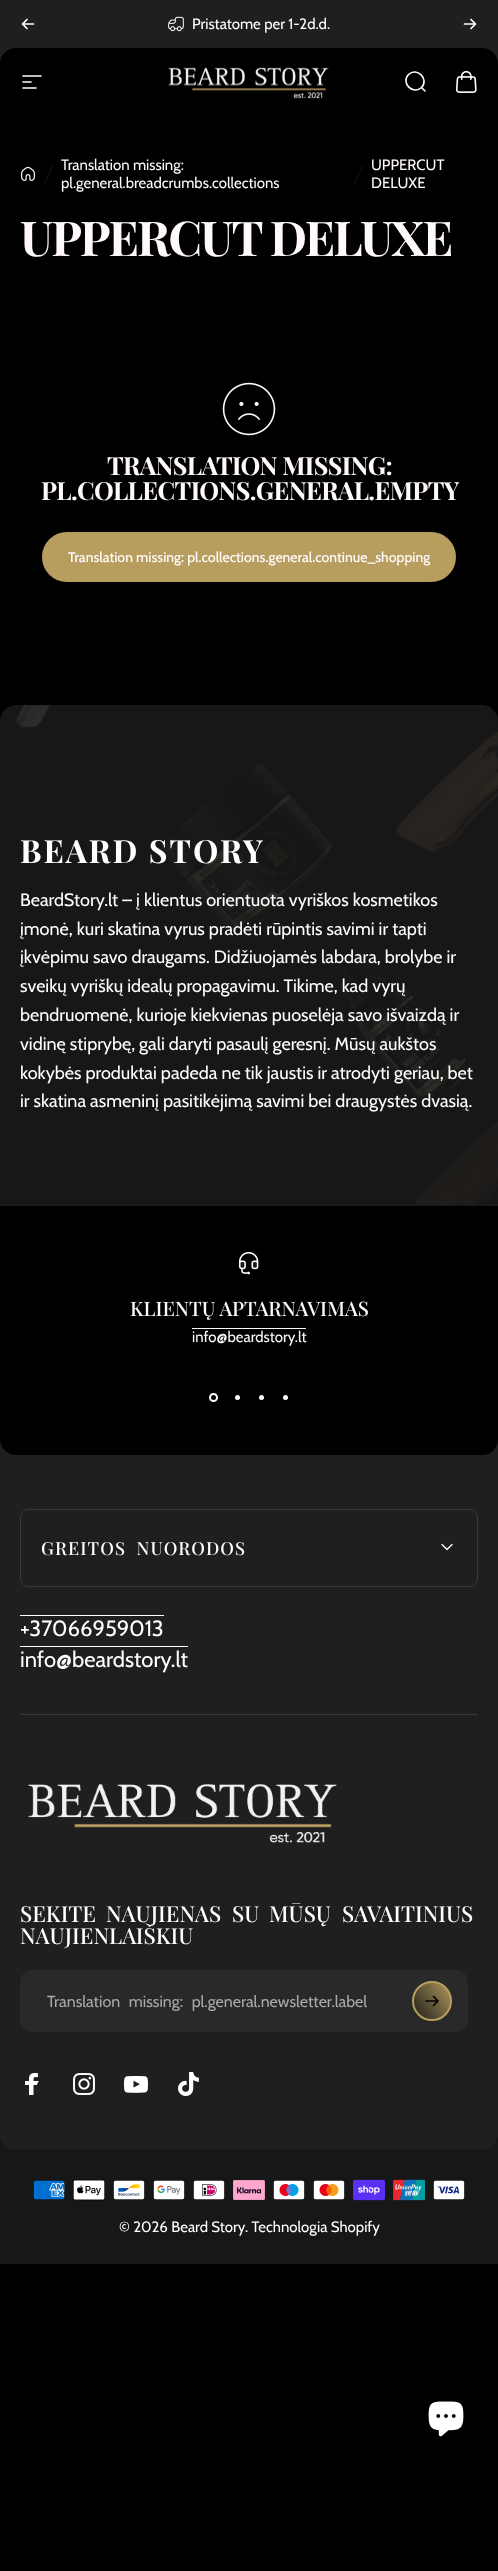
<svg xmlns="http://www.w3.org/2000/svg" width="498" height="2571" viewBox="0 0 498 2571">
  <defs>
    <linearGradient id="g1" gradientUnits="userSpaceOnUse" x1="137" y1="441" x2="361" y2="673"><stop offset="0.99" stop-color="#b79e5f"/><stop offset="1" stop-color="#fff"/></linearGradient>
    <linearGradient id="g2" gradientUnits="userSpaceOnUse" x1="409" y1="2017" x2="455" y2="1985"><stop offset="0" stop-color="#171717"/><stop offset="1" stop-color="#b79e5f"/></linearGradient>
  </defs>
  <rect width="100%" height="100%" fill="#000"/>
  <path d="M0 0h498v16H0z" fill="#1f1f1f"/>
  <path d="M16 0H482C491 0 498 7 498 16V64H0V16C0 7 7 0 16 0Z" fill="#1f1f1f"/>
  <path d="M27 19.5L22.5 24M22.5 24L27 28.5M22.5 24H33.5" fill="none" stroke="#fff" stroke-width="1.7" stroke-linecap="round" stroke-linejoin="round"/>
  <image x="168" y="16" width="16" height="16" href="img/1.png"/>
  <path d="M464.5 24H475.5M475.5 24L471 19.5M475.5 24L471 28.5" fill="none" stroke="#fff" stroke-width="1.7" stroke-linecap="round" stroke-linejoin="round"/>
  <path d="M16 48H482C491 48 498 55 498 64V116H0V64C0 55 7 48 16 48Z" fill="#000"/>
  <path d="M23 76H41M23 82H31M23 88H36" fill="none" stroke="#fff" stroke-width="1.6" stroke-linecap="round"/>
  <image x="168" y="67" width="161" height="32" href="img/2.png"/>
  <path d="M425 91L421.5 87.5M421.5 87.5C429.5 79 417 66.5 408.5 74.5C400.5 83 413 95.5 421.5 87.5Z" fill="none" stroke="#fff" stroke-width="1.6" stroke-linecap="round"/>
  <image x="455" y="70" width="22" height="23" href="img/3.png"/>
  <image x="21" y="166" width="14" height="15" href="img/4.png"/>
  <path d="M52.5 165L53.5 165.5L44 185L43.5 184.5Z" fill="#1a1919"/>
  <path d="M362.5 165L363 165.5L354 185L353.5 184.5Z" fill="#1a1919"/>
  <image x="222" y="382" width="54" height="54" href="img/5.png"/>
  <rect x="43" y="533" width="412" height="48" rx="24" fill="url(#g1)" stroke="#b79e5f" stroke-width="2"/>
  <path d="M16 705H482C491 705 498 712 498 721V1221H0V721C0 712 7 705 16 705Z" fill="#171717"/>
  <image x="16" y="705" width="34" height="23" href="img/6.png"/>
  <image x="161" y="763" width="171" height="169" href="img/7.png"/>
  <image x="326" y="954" width="141" height="148" href="img/8.png"/>
  <image x="415" y="1122" width="83" height="83" href="img/9.png"/>
  <image x="395" y="731" width="103" height="122" href="img/10.png"/>
  <path d="M0 2134h498v130H0z" fill="#171717"/>
  <path d="M0 1439H498V2134C498 2143 491 2150 482 2150H16C7 2150 0 2143 0 2134Z" fill="#1f1f1f"/>
  <path d="M0 1205H498V1439C498 1448 491 1455 482 1455H16C7 1455 0 1448 0 1439Z" fill="#000"/>
  <path d="M0 1205h498v1H0z" fill="#1a1919"/>
  <image x="238" y="1251" width="21" height="24" href="img/11.png"/>
  <path d="M192 1328h114v1H192z" fill="#fff9f9"/>
  <circle cx="213.5" cy="1397.5" r="3.5" fill="none" stroke="#fff9f9" stroke-width="2"/>
  <circle cx="237.5" cy="1397.5" r="2.5" fill="#fff9f9"/>
  <circle cx="261.5" cy="1397.5" r="2.5" fill="#fff9f9"/>
  <circle cx="285.5" cy="1397.5" r="2.5" fill="#fff9f9"/>
  <rect x="20.5" y="1509.5" width="457" height="77" rx="7.5" fill="none" stroke="#393939"/>
  <path d="M442 1544.5L447 1549.5L452 1544.5" fill="none" stroke="#fff" stroke-width="1.3" stroke-linecap="round" stroke-linejoin="round"/>
  <path d="M20 1615h144v1H20z" fill="#fff"/>
  <path d="M20 1646h168v1H20z" fill="#fff"/>
  <path d="M20 1714h458v1H20z" fill="#393939"/>
  <image x="28" y="1783" width="309" height="60" href="img/12.png"/>
  <rect x="20" y="1970" width="448" height="62" rx="12" fill="#292929"/>
  <circle cx="432" cy="2001" r="19" fill="url(#g2)" stroke="#b79e5f" stroke-width="2"/>
  <path d="M426 2001H438M438 2001L433.5 1996.5M438 2001L433.5 2005.5" fill="none" stroke="#000" stroke-width="1.6" stroke-linecap="round" stroke-linejoin="round"/>
  <image x="25" y="2073" width="14" height="22" href="img/13.png"/>
  <image x="73" y="2073" width="22" height="22" href="img/14.png"/>
  <image x="124" y="2076" width="24" height="17" href="img/15.png"/>
  <image x="178" y="2072" width="21" height="24" href="img/16.png"/>
  <image x="33" y="2180" width="32" height="20" href="img/17.png"/>
  <image x="73" y="2179" width="32" height="22" href="img/18.png"/>
  <image x="113" y="2180" width="32" height="20" href="img/19.png"/>
  <image x="153" y="2180" width="32" height="20" href="img/20.png"/>
  <image x="193" y="2180" width="32" height="20" href="img/21.png"/>
  <image x="233" y="2180" width="32" height="20" href="img/22.png"/>
  <image x="273" y="2180" width="32" height="20" href="img/23.png"/>
  <image x="313" y="2180" width="32" height="20" href="img/24.png"/>
  <image x="353" y="2179" width="32" height="22" href="img/25.png"/>
  <image x="393" y="2179" width="32" height="22" href="img/26.png"/>
  <image x="433" y="2180" width="32" height="20" href="img/27.png"/>
  <image x="428" y="2401" width="36" height="36" href="img/28.png"/>
  <text x="192" y="29" font-family="Cabin" font-size="15" fill="#fff">Pristatome per 1-2d.d.</text>
  <g font-family="Cabin" font-size="15" fill="#fff9f9">
    <text x="61" y="170">Translation missing:</text>
    <text x="61" y="188">pl.general.breadcrumbs.collections</text>
    <text x="371" y="170">UPPERCUT</text>
    <text x="371" y="188">DELUXE</text>
  </g>
  <text x="20" y="256" font-family="Playfair Display" font-size="48" font-weight="bold" letter-spacing="-1.9" fill="#fff9f9">UPPERCUT DELUXE</text>
  <g font-family="Playfair Display" font-size="25" font-weight="bold" letter-spacing="-0.6" fill="#fff9f9">
    <text x="107" y="475">TRANSLATION MISSING:</text>
    <text x="41" y="500">PL.COLLECTIONS.GENERAL.EMPTY</text>
  </g>
  <text x="68" y="562" font-family="Cabin" font-size="14" font-weight="500" fill="#fff9f9">Translation missing: pl.collections.general.continue_shopping</text>
  <text x="20" y="863" font-family="Playfair Display" font-size="32" font-weight="bold" letter-spacing="2" fill="#fff">BEARD STORY</text>
  <g font-family="Cabin" font-size="18" fill="#fff">
    <text x="20" y="906">BeardStory.lt – į klientus orientuota vyriškos kosmetikos</text>
    <text x="20" y="935">įmonė, kuri skatina vyrus pradėti rūpintis savimi ir tapti</text>
    <text x="20" y="963">įkvėpimu savo draugams. Didžiuojamės labdara, brolybe ir</text>
    <text x="20" y="992">sveikų vyriškų idealų propagavimu. Tikime, kad vyrų</text>
    <text x="20" y="1021">bendruomenė, kurioje kiekvienas puoselėja savo išvaizdą ir</text>
    <text x="20" y="1050">vidinę stiprybę, gali daryti pasaulį geresnį. Mūsų aukštos</text>
    <text x="20" y="1079">kokybės produktai padeda ne tik jaustis ir atrodyti geriau, bet</text>
    <text x="20" y="1107">ir skatina asmeninį pasitikėjimą savimi bei draugystės dvasią.</text>
  </g>
  <text x="130" y="1316" font-family="Playfair Display" font-size="20" font-weight="500" fill="#fff9f9">KLIENTŲ APTARNAVIMAS</text>
  <text x="192" y="1342" font-family="Cabin" font-size="15" fill="#fff9f9">info@beardstory.lt</text>
  <text x="41" y="1555" word-spacing="5" font-family="Playfair Display" font-size="18" font-weight="500" letter-spacing="1.1" fill="#fff">GREITOS NUORODOS</text>
  <g font-family="Cabin" font-size="22" fill="#fff">
    <text x="20" y="1636">+37066959013</text>
    <text x="20" y="1667">info@beardstory.lt</text>
  </g>
  <g font-family="Playfair Display" font-size="22" font-weight="500" fill="#fff">
    <text x="20" y="1922">SEKITE</text>
    <text x="106" y="1922">NAUJIENAS</text>
    <text x="232" y="1922">SU</text>
    <text x="269" y="1922">MŪSŲ</text>
    <text x="342" y="1922">SAVAITINIUS</text>
    <text x="20" y="1944">NAUJIENLAIŠKIU</text>
  </g>
  <text x="47" y="2007" word-spacing="5" font-family="Cabin" font-size="16" fill="#a9a9a9">Translation missing: pl.general.newsletter.label</text>
  <text x="119" y="2232" font-family="Cabin" font-size="15" fill="#fff">© 2026 Beard Story. Technologia Shopify</text>
</svg>
